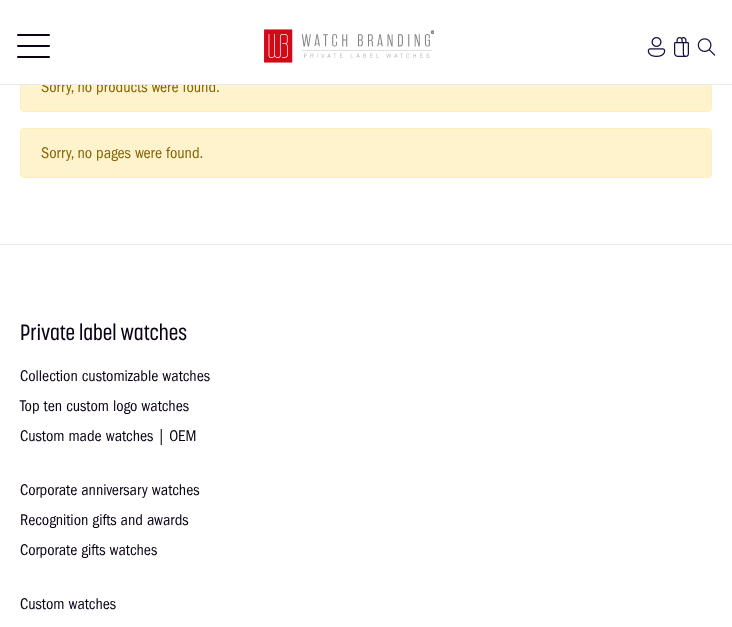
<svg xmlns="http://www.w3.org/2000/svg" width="732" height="627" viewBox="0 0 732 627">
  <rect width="100%" height="100%" fill="#fff"/>
  <rect x="17" y="34" width="33" height="2" rx="1" fill="#0b0014"/>
  <rect x="17" y="45" width="33" height="2" rx="1" fill="#0b0014"/>
  <rect x="17" y="56" width="33" height="2" rx="1" fill="#0b0014"/>
  <image x="647" y="37" width="19" height="20" href="img/2.png"/>
  <image x="674" y="37" width="15" height="20" href="img/3.png"/>
  <image x="697" y="38" width="19" height="18" href="img/4.png"/>
  <rect x="20.5" y="62.5" width="691" height="49" rx="3.5" fill="#fff3cd" stroke="#ffeeba"/>
  <rect x="20.5" y="128.5" width="691" height="49" rx="3.5" fill="#fff3cd" stroke="#ffeeba"/>
  <path d="M0 244h732v1H0z" fill="#e6ebeb"/>
  <text x="41" y="92" font-family="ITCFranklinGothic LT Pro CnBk" font-size="16" fill="#856404">Sorry, no products were found.</text>
  <path d="M20 62h692v22H20z" fill="#fff"/>
  <image x="264" y="29" width="170" height="34" href="img/1.png"/>
  <path d="M0 84h732v1H0z" fill="#e6ebeb"/>
  <text x="41" y="158" font-family="ITCFranklinGothic LT Pro CnBk" font-size="16" fill="#856404">Sorry, no pages were found.</text>
  <text x="20" y="340" font-family="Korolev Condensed" font-size="22" font-weight="500" fill="#0b0014">Private label watches</text>
  <g font-family="ITCFranklinGothic LT Pro CnBk" font-size="16" fill="#0b0014">
    <text x="20" y="381">Collection customizable watches</text>
    <text x="20" y="411">Top ten custom logo watches</text>
    <text x="20" y="441">Custom made watches | OEM</text>
    <text x="20" y="495">Corporate anniversary watches</text>
    <text x="20" y="525">Recognition gifts and awards</text>
    <text x="20" y="555">Corporate gifts watches</text>
    <text x="20" y="609">Custom watches</text>
  </g>
</svg>
